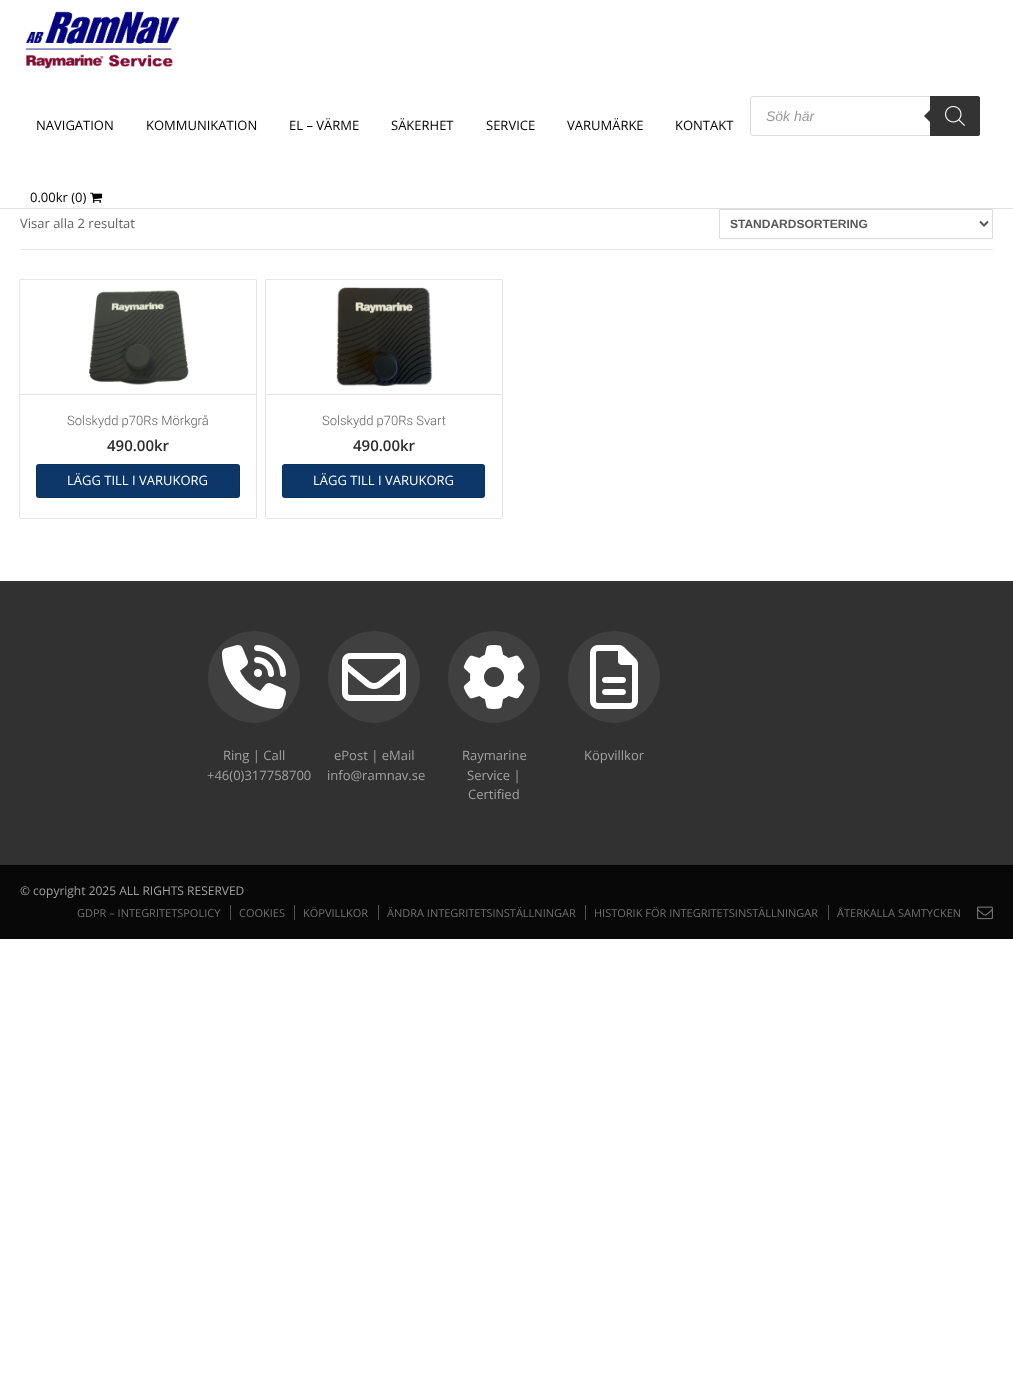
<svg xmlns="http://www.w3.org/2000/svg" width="1013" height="1382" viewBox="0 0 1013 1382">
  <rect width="100%" height="100%" fill="#fff"/>
  <path d="M0 208h1013v1H0z" fill="#e0e0e0"/>
  <image x="25" y="11" width="155" height="58" href="img/1.png"/>
  <rect x="750.5" y="96.5" width="229" height="39" rx="2.5" fill="none" stroke="#ddd"/>
  <path d="M930 96H978C979 96 980 97 980 98V134C980 135 979 136 978 136H930Z" fill="#333"/>
  <path d="M932 108V124L924 116Z" fill="#333"/>
  <image x="945" y="106" width="20" height="20" href="img/2.png"/>
  <image x="90" y="192" width="13" height="11" href="img/3.png"/>
  <path d="M20 249h973v1H20z" fill="#ebebeb"/>
  <path d="M719 238C719 239 719 240 720 240H992H993V238L992 239H720Z" fill="#fafafa"/>
  <rect x="719.5" y="209.5" width="273" height="29" rx="0.5" fill="none" stroke="#dcdcdc"/>
  <path d="M980 221.5L984 225.5L988 221.5" fill="none" stroke="#595959" stroke-width="2"/>
  <path d="M19.5 279.5h237v239H19.5z" fill="none" stroke="#e6e6e6"/>
  <path d="M20 394h236v1H20z" fill="#e6e6e6"/>
  <image x="89" y="290" width="100" height="95" href="img/4.png"/>
  <rect x="36" y="464" width="204" height="34" rx="3" fill="#0c3768"/>
  <rect x="36.5" y="464.5" width="203" height="33" rx="2.5" fill="none" stroke="#0000001a"/>
  <path d="M265.5 279.5h237v239H265.5z" fill="none" stroke="#e6e6e6"/>
  <path d="M266 394h236v1H266z" fill="#e6e6e6"/>
  <image x="336" y="287" width="97" height="100" href="img/5.png"/>
  <rect x="282" y="464" width="203" height="34" rx="3" fill="#0c3768"/>
  <rect x="282.5" y="464.5" width="202" height="33" rx="2.5" fill="none" stroke="#0000001a"/>
  <path d="M0 581h1013v284H0z" fill="#313131"/>
  <path d="M300 677C300 702 279 723 254 723C229 723 208 702 208 677C208 651 229 631 254 631C279 631 300 651 300 677Z" fill="#404040"/>
  <image x="222" y="645" width="64" height="64" href="img/6.png"/>
  <path d="M420 677C420 702 399 723 374 723C349 723 328 702 328 677C328 651 349 631 374 631C399 631 420 651 420 677Z" fill="#404040"/>
  <image x="342" y="653" width="64" height="48" href="img/7.png"/>
  <path d="M540 677C540 702 519 723 494 723C469 723 448 702 448 677C448 651 469 631 494 631C519 631 540 651 540 677Z" fill="#404040"/>
  <image x="463" y="645" width="62" height="64" href="img/8.png"/>
  <path d="M660 677C660 702 639 723 614 723C589 723 568 702 568 677C568 651 589 631 614 631C639 631 660 651 660 677Z" fill="#404040"/>
  <image x="590" y="645" width="48" height="64" href="img/9.png"/>
  <path d="M0 866h1013v73H0z" fill="#080808"/>
  <path d="M0 865h1013v1H0z" fill="#040404"/>
  <path d="M230 905h1v15H230z" fill="#525252"/>
  <path d="M294 905h1v15H294z" fill="#525252"/>
  <path d="M378 905h1v15H378z" fill="#525252"/>
  <path d="M585 905h1v15H585z" fill="#525252"/>
  <path d="M828 905h1v15H828z" fill="#525252"/>
  <image x="977" y="906" width="16" height="14" href="img/10.png"/>
  <text x="766" y="121" font-family="Liberation Sans" font-size="14" font-style="italic" fill="#999">Sök här</text>
  <g font-family="Open Sans" font-size="13" fill="#000">
    <text x="36" y="130">NAVIGATION</text>
    <text x="146" y="130">KOMMUNIKATION</text>
    <text x="289" y="130">EL – VÄRME</text>
    <text x="391" y="130">SÄKERHET</text>
    <text x="486" y="130">SERVICE</text>
    <text x="567" y="130">VARUMÄRKE</text>
    <text x="675" y="130">KONTAKT</text>
    <text x="30" y="202">0.00kr (0)</text>
  </g>
  <text x="20" y="228" font-family="Open Sans" font-size="13" fill="#626262">Visar alla 2 resultat</text>
  <text x="730" y="228" font-family="Liberation Sans" font-size="12" font-weight="bold" fill="#595959">STANDARDSORTERING</text>
  <text x="67" y="425" font-family="Roboto" font-size="13" font-weight="300" fill="#626262">Solskydd p70Rs Mörkgrå</text>
  <text x="107" y="451" font-family="Open Sans" font-size="15" font-weight="600" fill="#2d2d2d">490.00kr</text>
  <text x="67" y="485" font-family="Open Sans" font-size="13" fill="#fff">LÄGG TILL I VARUKORG</text>
  <text x="322" y="425" font-family="Roboto" font-size="13" font-weight="300" fill="#626262">Solskydd p70Rs Svart</text>
  <text x="353" y="451" font-family="Open Sans" font-size="15" font-weight="600" fill="#2d2d2d">490.00kr</text>
  <text x="313" y="485" font-family="Open Sans" font-size="13" fill="#fff">LÄGG TILL I VARUKORG</text>
  <g font-family="Open Sans" font-size="13" fill="#a1a1a1">
    <text x="223" y="760">Ring | Call</text>
    <text x="207" y="780">+46(0)317758700</text>
    <text x="334" y="760">ePost | eMail</text>
    <text x="327" y="780">info@ramnav.se</text>
    <text x="462" y="760">Raymarine</text>
    <text x="467" y="780">Service |</text>
    <text x="468" y="799">Certified</text>
    <text x="584" y="760">Köpvillkor</text>
  </g>
  <text x="20" y="895" font-family="Open Sans" font-size="12" fill="#a1a1a1">© copyright 2025 ALL RIGHTS RESERVED</text>
  <g font-family="Open Sans" font-size="11" fill="#717171">
    <text x="77" y="917">GDPR – INTEGRITETSPOLICY</text>
    <text x="239" y="917">COOKIES</text>
    <text x="303" y="917">KÖPVILLKOR</text>
    <text x="387" y="917">ÄNDRA INTEGRITETSINSTÄLLNINGAR</text>
    <text x="594" y="917">HISTORIK FÖR INTEGRITETSINSTÄLLNINGAR</text>
    <text x="837" y="917">ÅTERKALLA SAMTYCKEN</text>
  </g>
</svg>
